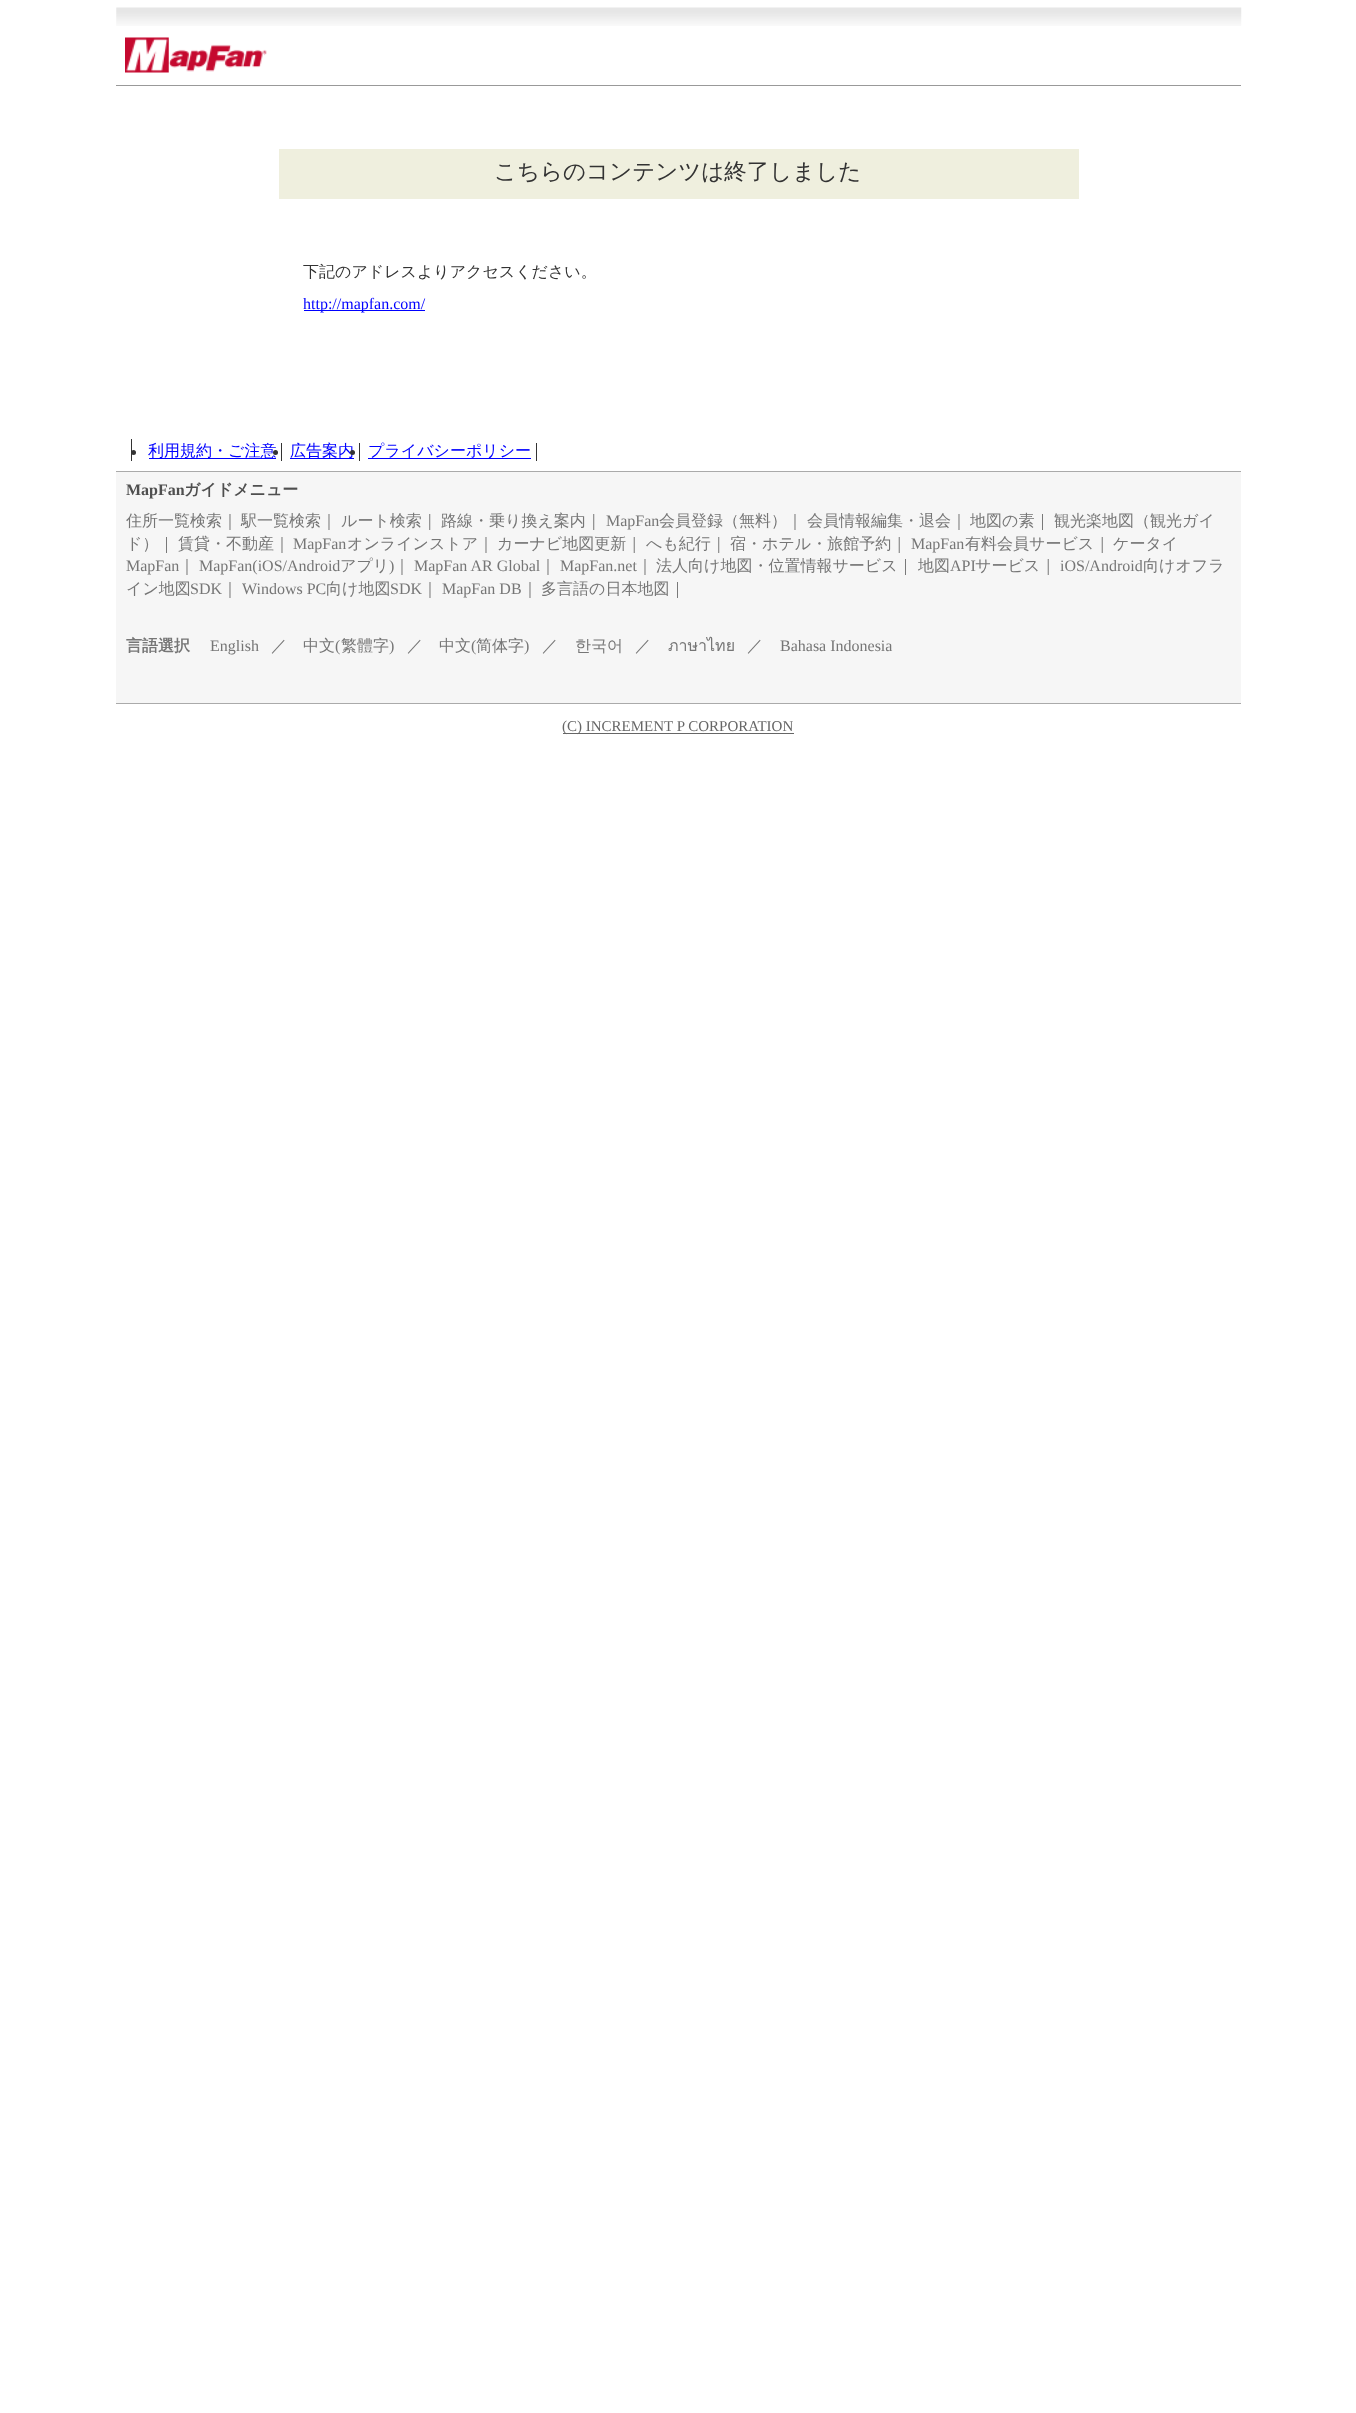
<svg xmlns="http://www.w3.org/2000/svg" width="1356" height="2413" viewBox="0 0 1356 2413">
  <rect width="100%" height="100%" fill="#fff"/>
  <image x="116" y="7" width="1126" height="19" href="img/1.png"/>
  <path d="M116 85h1125v1H116z" fill="#999"/>
  <image x="125" y="37" width="142" height="36" href="img/2.png"/>
  <path d="M279 149h800v50H279z" fill="#efefde"/>
  <path d="M304 310h121v1H304z" fill="#00f"/>
  <path d="M131 439h1v22H131z" fill="#333"/>
  <path d="M281 443h1v18H281z" fill="#333"/>
  <circle cx="133.5" cy="452.5" r="2.5" fill="#333"/>
  <path d="M149 458h127v1H149z" fill="#00f"/>
  <path d="M359 443h1v18H359z" fill="#333"/>
  <path d="M290 458h64v1H290z" fill="#00f"/>
  <path d="M536 443h1v18H536z" fill="#333"/>
  <path d="M368 458h163v1H368z" fill="#00f"/>
  <path d="M116 472h1125v231H116z" fill="#f6f6f6"/>
  <path d="M116 471h1125v1H116z" fill="#aaa"/>
  <path d="M116 703h1125v1H116z" fill="#aaa"/>
  <path d="M563 733h231v1H563z" fill="#666"/>
  <text x="494" y="179" font-family="WenQuanYi Zen Hei" font-size="22.5" font-weight="500" fill="#333">こちらのコンテンツは終了しました</text>
  <text x="303" y="277" font-family="WenQuanYi Zen Hei" font-size="16" font-weight="500" fill="#333">下記のアドレスよりアクセスください。</text>
  <text x="303" y="309" font-family="Liberation Serif" font-size="16" fill="#00f">http://mapfan.com/</text>
  <text x="148" y="456" font-family="WenQuanYi Zen Hei" font-size="16" font-weight="500" fill="#00f">利用規約・ご注意</text>
  <circle cx="275.5" cy="452.5" r="2.5" fill="#333"/>
  <text x="290" y="456" font-family="WenQuanYi Zen Hei" font-size="16" font-weight="500" fill="#00f">広告案内</text>
  <circle cx="352.5" cy="452.5" r="2.5" fill="#333"/>
  <text x="368" y="456" font-family="WenQuanYi Zen Hei" font-size="16" font-weight="500" fill="#00f">プライバシーポリシー</text>
  <text x="126" y="495" font-family="Liberation Serif" font-size="16" font-weight="bold" fill="#4f4f4f">MapFan</text>
  <text x="184" y="495" font-family="WenQuanYi Zen Hei" font-size="16" font-weight="bold" fill="#4f4f4f">ガイドメニュー</text>
  <g font-family="WenQuanYi Zen Hei" font-size="16" font-weight="500" fill="#767676">
    <text x="126" y="526">住所一覧検索｜</text>
    <text x="241" y="526">駅一覧検索｜</text>
    <text x="341" y="526">ルート検索｜</text>
    <text x="441" y="526">路線・乗り換え案内｜</text>
  </g>
  <text x="606" y="526" font-family="Liberation Serif" font-size="16" fill="#767676">MapFan</text>
  <g font-family="WenQuanYi Zen Hei" font-size="16" font-weight="500" fill="#767676">
    <text x="659" y="526">会員登録（無料）｜</text>
    <text x="807" y="526">会員情報編集・退会｜</text>
    <text x="970" y="526">地図の素｜</text>
    <text x="1054" y="526">観光楽地図（観光ガイ</text>
    <text x="126" y="549">ド）｜</text>
    <text x="178" y="549">賃貸・不動産｜</text>
  </g>
  <text x="293" y="549" font-family="Liberation Serif" font-size="16" fill="#767676">MapFan</text>
  <g font-family="WenQuanYi Zen Hei" font-size="16" font-weight="500" fill="#767676">
    <text x="347" y="549">オンラインストア｜</text>
    <text x="497" y="549">カーナビ地図更新｜</text>
    <text x="646" y="549">へも紀行｜</text>
    <text x="730" y="549">宿・ホテル・旅館予約｜</text>
  </g>
  <text x="911" y="549" font-family="Liberation Serif" font-size="16" fill="#767676">MapFan</text>
  <g font-family="WenQuanYi Zen Hei" font-size="16" font-weight="500" fill="#767676">
    <text x="965" y="549">有料会員サービス｜</text>
    <text x="1113" y="549">ケータイ</text>
  </g>
  <text x="126" y="571" font-family="Liberation Serif" font-size="16" fill="#767676">MapFan</text>
  <text x="179" y="571" font-family="WenQuanYi Zen Hei" font-size="16" font-weight="500" fill="#767676">｜</text>
  <text x="199" y="571" font-family="Liberation Serif" font-size="16" fill="#767676">MapFan(iOS/Android</text>
  <text x="340" y="571" font-family="WenQuanYi Zen Hei" font-size="16" font-weight="500" fill="#767676">アプリ</text>
  <text x="389" y="571" font-family="Liberation Serif" font-size="16" fill="#767676">)</text>
  <text x="394" y="571" font-family="WenQuanYi Zen Hei" font-size="16" font-weight="500" fill="#767676">｜</text>
  <text x="414" y="571" font-family="Liberation Serif" font-size="16" fill="#767676">MapFan AR Global</text>
  <text x="540" y="571" font-family="WenQuanYi Zen Hei" font-size="16" font-weight="500" fill="#767676">｜</text>
  <text x="560" y="571" font-family="Liberation Serif" font-size="16" fill="#767676">MapFan.net</text>
  <g font-family="WenQuanYi Zen Hei" font-size="16" font-weight="500" fill="#767676">
    <text x="637" y="571">｜</text>
    <text x="656" y="571">法人向け地図・位置情報サービス｜</text>
    <text x="918" y="571">地図</text>
  </g>
  <text x="950" y="571" font-family="Liberation Serif" font-size="16" fill="#767676">API</text>
  <text x="975" y="571" font-family="WenQuanYi Zen Hei" font-size="16" font-weight="500" fill="#767676">サービス｜</text>
  <text x="1060" y="571" font-family="Liberation Serif" font-size="16" fill="#767676">iOS/Android</text>
  <g font-family="WenQuanYi Zen Hei" font-size="16" font-weight="500" fill="#767676">
    <text x="1143" y="571">向けオフラ</text>
    <text x="126" y="594">イン地図</text>
  </g>
  <text x="190" y="594" font-family="Liberation Serif" font-size="16" fill="#767676">SDK</text>
  <text x="222" y="594" font-family="WenQuanYi Zen Hei" font-size="16" font-weight="500" fill="#767676">｜</text>
  <text x="242" y="594" font-family="Liberation Serif" font-size="16" fill="#767676">Windows PC</text>
  <text x="326" y="594" font-family="WenQuanYi Zen Hei" font-size="16" font-weight="500" fill="#767676">向け地図</text>
  <text x="390" y="594" font-family="Liberation Serif" font-size="16" fill="#767676">SDK</text>
  <text x="422" y="594" font-family="WenQuanYi Zen Hei" font-size="16" font-weight="500" fill="#767676">｜</text>
  <text x="442" y="594" font-family="Liberation Serif" font-size="16" fill="#767676">MapFan DB</text>
  <g font-family="WenQuanYi Zen Hei" font-size="16" font-weight="500" fill="#767676">
    <text x="522" y="594">｜</text>
    <text x="541" y="594">多言語の日本地図｜</text>
  </g>
  <text x="126" y="651" font-family="WenQuanYi Zen Hei" font-size="16" font-weight="bold" fill="#767676">言語選択</text>
  <text x="210" y="651" font-family="Liberation Serif" font-size="16" fill="#767676">English</text>
  <g font-family="WenQuanYi Zen Hei" font-size="16" font-weight="500" fill="#767676">
    <text x="271" y="651">／</text>
    <text x="303" y="651">中文</text>
  </g>
  <text x="335" y="651" font-family="Liberation Serif" font-size="16" fill="#767676">(</text>
  <text x="341" y="651" font-family="WenQuanYi Zen Hei" font-size="16" font-weight="500" fill="#767676">繁體字</text>
  <text x="389" y="651" font-family="Liberation Serif" font-size="16" fill="#767676">)</text>
  <g font-family="WenQuanYi Zen Hei" font-size="16" font-weight="500" fill="#767676">
    <text x="407" y="651">／</text>
    <text x="439" y="651">中文</text>
  </g>
  <text x="471" y="651" font-family="Liberation Serif" font-size="16" fill="#767676">(</text>
  <text x="476" y="651" font-family="WenQuanYi Zen Hei" font-size="16" font-weight="500" fill="#767676">简体字</text>
  <text x="524" y="651" font-family="Liberation Serif" font-size="16" fill="#767676">)</text>
  <g font-family="WenQuanYi Zen Hei" font-size="16" font-weight="500" fill="#767676">
    <text x="542" y="651">／</text>
    <text x="575" y="651">한국어</text>
    <text x="635" y="651">／</text>
  </g>
  <text x="668" y="651" font-family="Loma" font-size="16" fill="#767676">ภาษาไทย</text>
  <text x="747" y="651" font-family="WenQuanYi Zen Hei" font-size="16" font-weight="500" fill="#767676">／</text>
  <text x="780" y="651" font-family="Liberation Serif" font-size="16" fill="#767676">Bahasa Indonesia</text>
  <text x="562" y="731" font-family="Liberation Serif" font-size="15" fill="#666">(C) INCREMENT P CORPORATION</text>
</svg>
